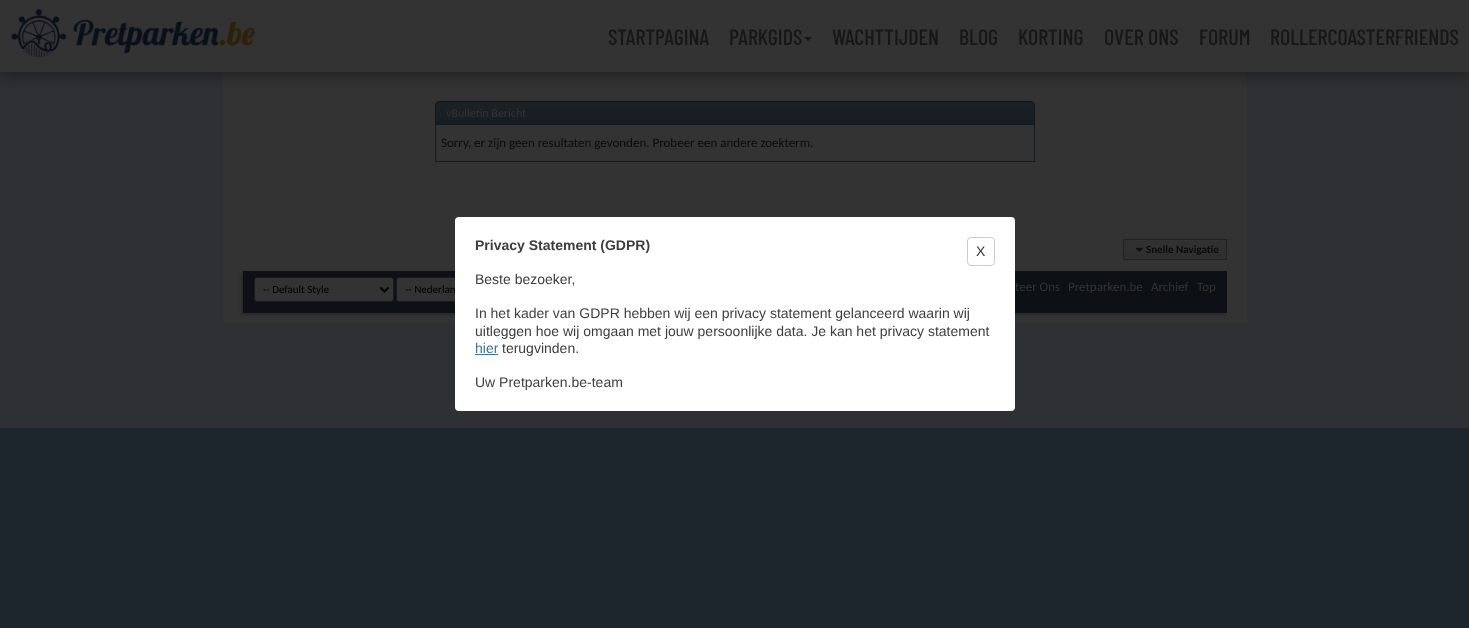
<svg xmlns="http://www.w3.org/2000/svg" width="1469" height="628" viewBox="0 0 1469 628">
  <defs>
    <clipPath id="clip1"><path d="M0 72h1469v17H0z"/></clipPath>
  </defs>
  <rect width="100%" height="100%" fill="#1d262c"/>
  <path d="M0 72h1469v356H0z" fill="#2e3033"/>
  <path d="M0 0h1469v72H0z" fill="#333"/>
  <path d="M223 72h1024v251H223z" fill="#333"/>
  <image x="243" y="31" width="12" height="11" href="img/2.png"/>
  <path d="M440 101H1030C1033 101 1035 103 1035 106V125H435V106C435 103 437 101 440 101Z" fill="#171d22"/>
  <image x="435" y="102" width="600" height="20" href="img/3.png"/>
  <path d="M440 101.5H1030C1032.5 101.5 1034.5 103.5 1034.5 106V124.5H435.5V106C435.5 103.5 437.5 101.5 440 101.5Z" fill="none" stroke="#12191e"/>
  <g clip-path="url(#clip1)">
    <path d="M0 0h1469v72H0z" fill="#00000080" filter="blur(10px)"/>
  </g>
  <image x="11" y="8" width="245" height="50" href="img/1.png"/>
  <path d="M804 37H812L808 41Z" fill="#171717"/>
  <path d="M1034 125h1v37H1034z" fill="#151d22"/>
  <path d="M435 161h600v1H435z" fill="#151d22"/>
  <path d="M435 125h1v37H435z" fill="#151d22"/>
  <path d="M1124 240h102v19H1124z" fill="#2f2f2f"/>
  <image x="1124" y="240" width="102" height="12" href="img/4.png"/>
  <path d="M1123.5 239.5h103v20H1123.5z" fill="none" stroke="#222"/>
  <image x="1135" y="247" width="9" height="6" href="img/5.png"/>
  <path d="M241 273h984v42H241z" fill="#282828" filter="blur(1px)"/>
  <path d="M243 271h984v42H243z" fill="#0d1115"/>
  <rect x="254.5" y="277.5" width="139" height="24" rx="2.5" fill="#333" stroke="#151d22"/>
  <path d="M380.5 287.5L384.5 291.5L388.5 287.5" fill="none" stroke="#000" stroke-width="2"/>
  <rect x="396.5" y="277.5" width="121" height="24" rx="2.5" fill="#333" stroke="#151d22"/>
  <g font-family="Barlow Condensed" font-size="22" font-weight="500" fill="#171717">
    <text x="608" y="45">STARTPAGINA</text>
    <text x="729" y="45">PARKGIDS</text>
    <text x="832" y="45">WACHTTIJDEN</text>
    <text x="959" y="45">BLOG</text>
    <text x="1018" y="45">KORTING</text>
    <text x="1104" y="45">OVER ONS</text>
    <text x="1199" y="45">FORUM</text>
    <text x="1270" y="45">ROLLERCOASTERFRIENDS</text>
  </g>
  <text x="446" y="117" font-family="Carlito" font-size="12" fill="#333">vBulletin Bericht</text>
  <text x="441" y="147" font-family="Carlito" font-size="13" fill="#0c0c0c">Sorry, er zijn geen resultaten gevonden. Probeer een andere zoekterm.</text>
  <text x="1146" y="253" font-family="Carlito" font-size="11" font-weight="bold" fill="#0c0c0c">Snelle Navigatie</text>
  <g font-family="Carlito" font-size="11" fill="#000">
    <text x="263" y="293">-- Default Style</text>
    <text x="405" y="293">-- Nederlan</text>
  </g>
  <rect x="455" y="217" width="560" height="194" rx="4" fill="#fff"/>
  <rect x="967.5" y="237.5" width="27" height="28" rx="3.5" fill="none" stroke="#ccc"/>
  <text x="976" y="256" font-family="Liberation Sans" font-size="14" fill="#333">X</text>
  <g font-family="Liberation Sans" font-size="14" fill="#3e3e3e">
    <text x="475" y="387">Uw Pretparken.be-team</text>
    <text x="502" y="353">terugvinden.</text>
  </g>
  <text x="475" y="353" font-family="Liberation Sans" font-size="14" fill="#417394">hier</text>
  <path d="M475 354h23v1H475z" fill="#417394"/>
  <g font-family="Liberation Sans" font-size="14" fill="#3e3e3e">
    <text x="475" y="336">uitleggen hoe wij omgaan met jouw persoonlijke data. Je kan het privacy statement</text>
    <text x="475" y="318">In het kader van GDPR hebben wij een privacy statement gelanceerd waarin wij</text>
    <text x="475" y="284">Beste bezoeker,</text>
  </g>
  <text x="475" y="250" font-family="Liberation Sans" font-size="14" font-weight="bold" fill="#3e3e3e">Privacy Statement (GDPR)</text>
  <g font-family="Carlito" font-size="13" fill="#333">
    <text x="1015" y="291">teer Ons</text>
    <text x="1068" y="291">Pretparken.be</text>
    <text x="1151" y="291">Archief</text>
    <text x="1197" y="291">Top</text>
  </g>
</svg>
